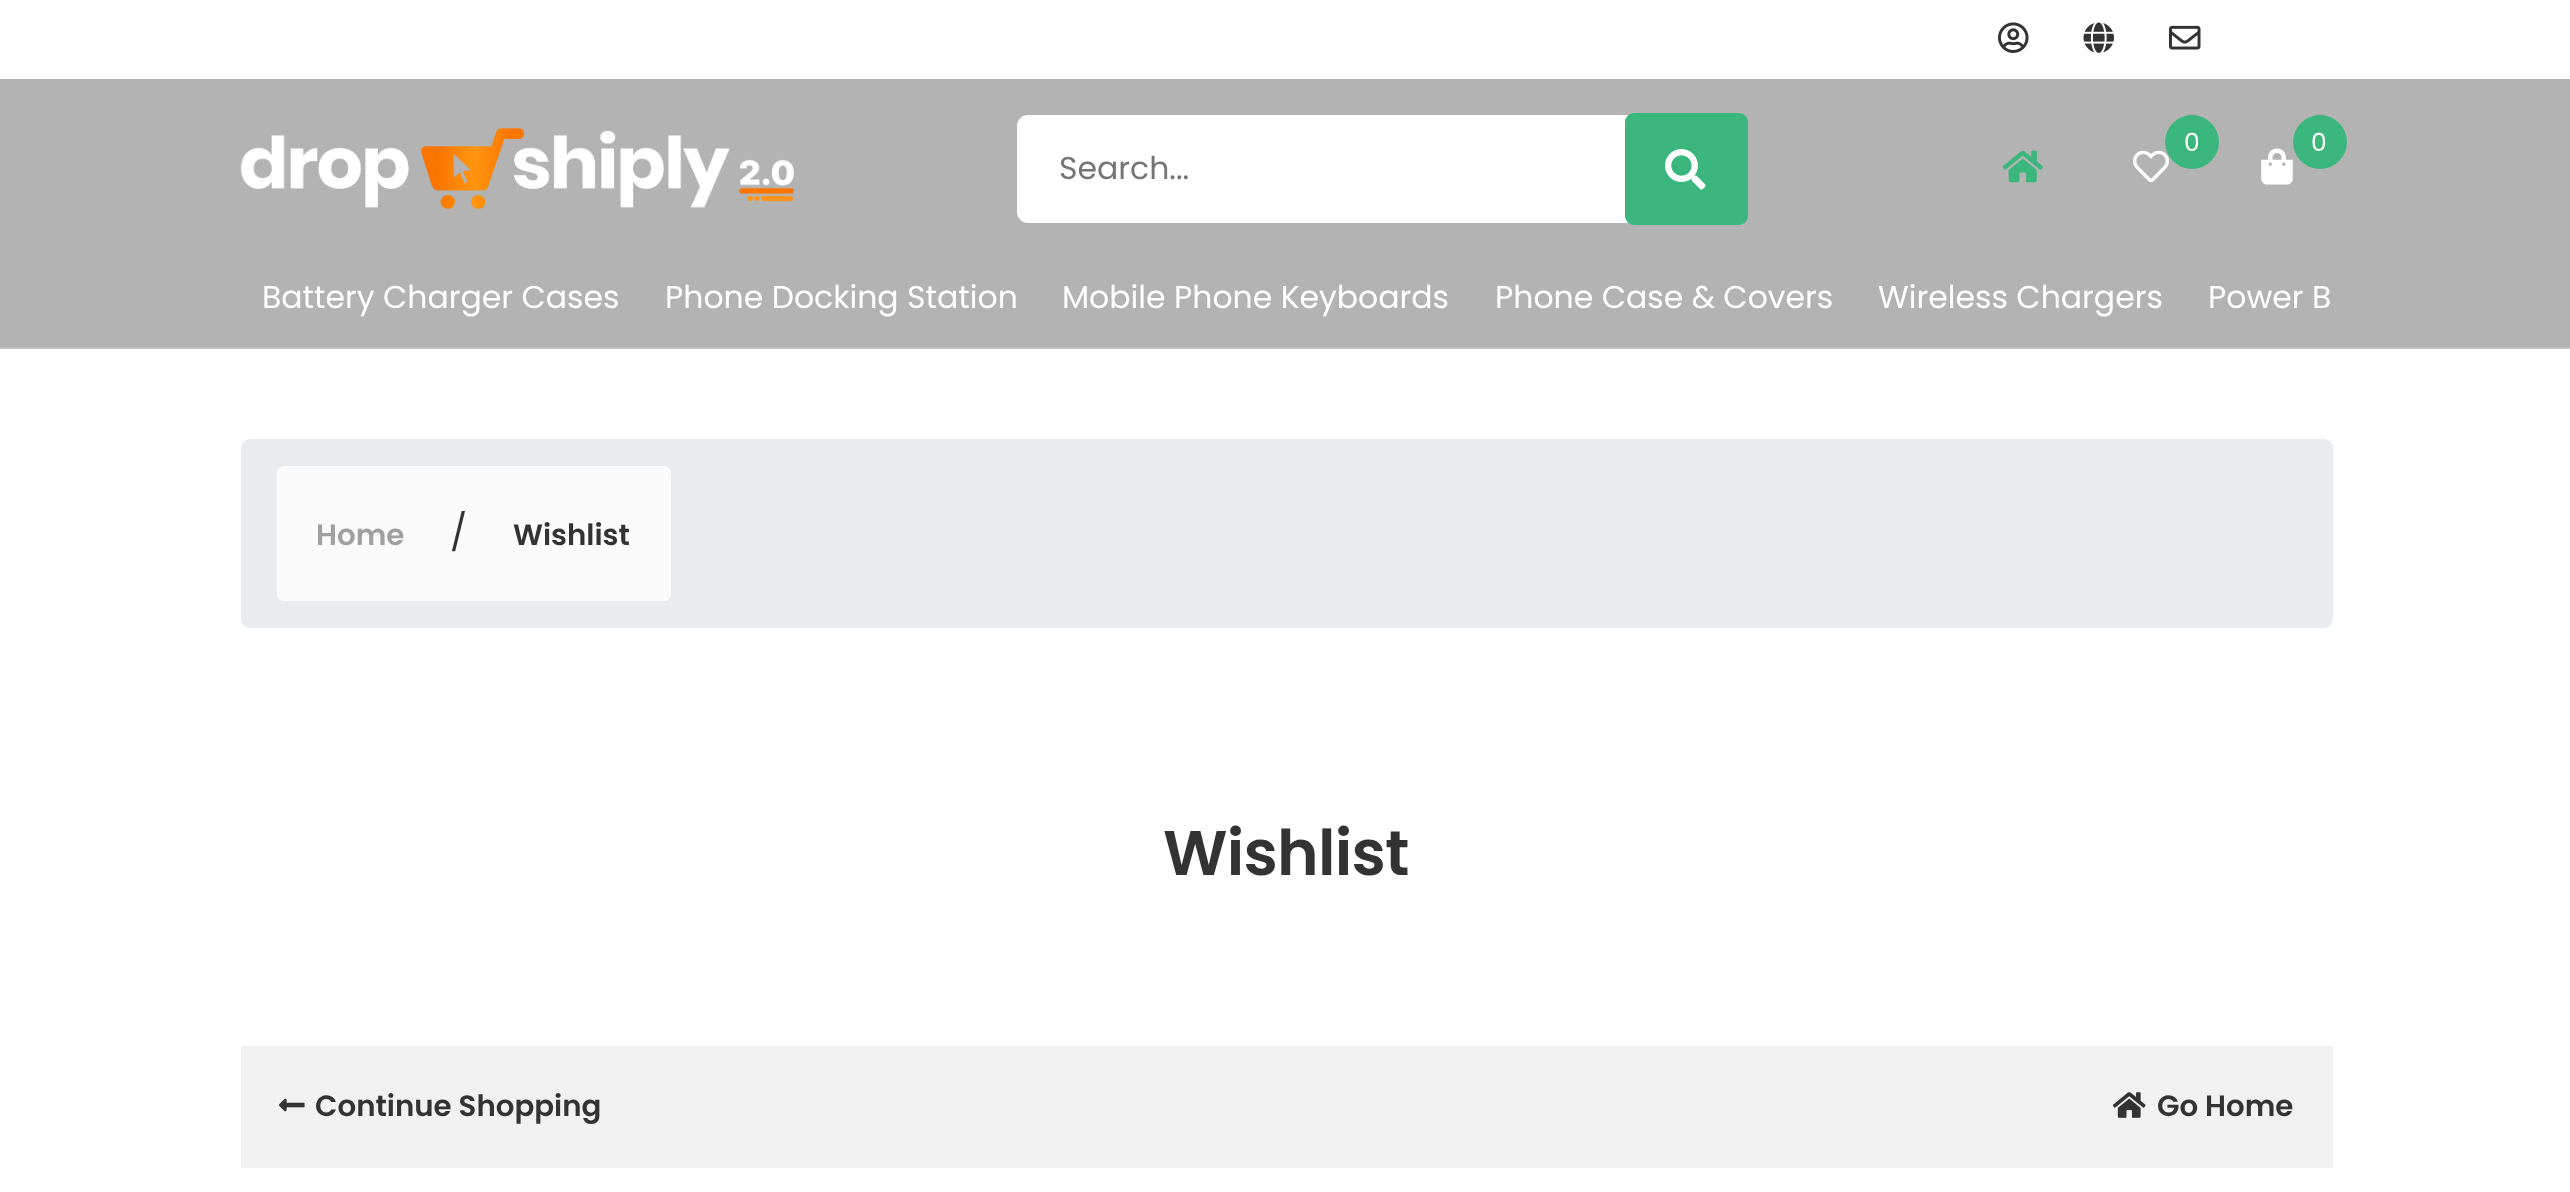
<svg xmlns="http://www.w3.org/2000/svg" width="2570" height="1192" viewBox="0 0 2570 1192">
  <rect width="100%" height="100%" fill="#fff"/>
  <image x="1998" y="22" width="31" height="31" href="img/1.png"/>
  <image x="2083" y="22" width="31" height="31" href="img/2.png"/>
  <image x="2169" y="25" width="32" height="25" href="img/3.png"/>
  <path d="M0 79h2570v268H0z" fill="#b3b3b3"/>
  <path d="M0 347h2570v2H0z" fill="#c2c2c2"/>
  <image x="240" y="128" width="554" height="82" href="img/4.png"/>
  <image x="2133" y="150" width="36" height="33" href="img/5.png"/>
  <circle cx="2192" cy="142" r="27" fill="#3bb77e"/>
  <circle cx="2320" cy="142" r="27" fill="#3bb77e"/>
  <image x="2261" y="148" width="32" height="37" href="img/6.png"/>
  <image x="2002" y="150" width="41" height="33" href="img/7.png"/>
  <rect x="1017" y="115" width="729" height="108" rx="11" fill="#fff"/>
  <rect x="1625" y="113" width="123" height="112" rx="9" fill="#3bb77e"/>
  <image x="1665" y="149" width="41" height="41" href="img/8.png"/>
  <rect x="241" y="439" width="2092" height="189" rx="9" fill="#e9ecef"/>
  <rect x="277" y="466" width="394" height="135" rx="7" fill="#fbfbfb"/>
  <path d="M241 1046h2092v122H241z" fill="#f1f1f1"/>
  <image x="279" y="1098" width="26" height="14" href="img/9.png"/>
  <image x="2112" y="1092" width="34" height="26" href="img/10.png"/>
  <g font-family="Poppins" font-size="25" fill="#fff">
    <text x="2184" y="151">0</text>
    <text x="2311" y="151">0</text>
  </g>
  <text x="1059" y="179" font-family="Poppins" font-size="31.5" fill="#757575">Search...</text>
  <g font-family="Poppins" font-size="31.5" fill="#fff">
    <text x="262" y="308">Battery Charger Cases</text>
    <text x="665" y="308">Phone Docking Station</text>
    <text x="1062" y="308">Mobile Phone Keyboards</text>
    <text x="1495" y="308">Phone Case &amp; Covers</text>
    <text x="1878" y="308">Wireless Chargers</text>
    <text x="2208" y="308">Power B</text>
  </g>
  <text x="316" y="545" font-family="Poppins" font-size="29.25" font-weight="600" fill="#a0a0a0">Home</text>
  <text x="450" y="545" font-family="Poppins" font-size="36" fill="#333">/</text>
  <text x="513" y="545" font-family="Poppins" font-size="29.25" font-weight="600" fill="#333">Wishlist</text>
  <text x="1163" y="875" font-family="Poppins" font-size="63" font-weight="600" letter-spacing="-0.75" fill="#333">Wishlist</text>
  <g font-family="Poppins" font-size="29.25" font-weight="600" fill="#333">
    <text x="315" y="1116">Continue Shopping</text>
    <text x="2157" y="1116">Go Home</text>
  </g>
</svg>
